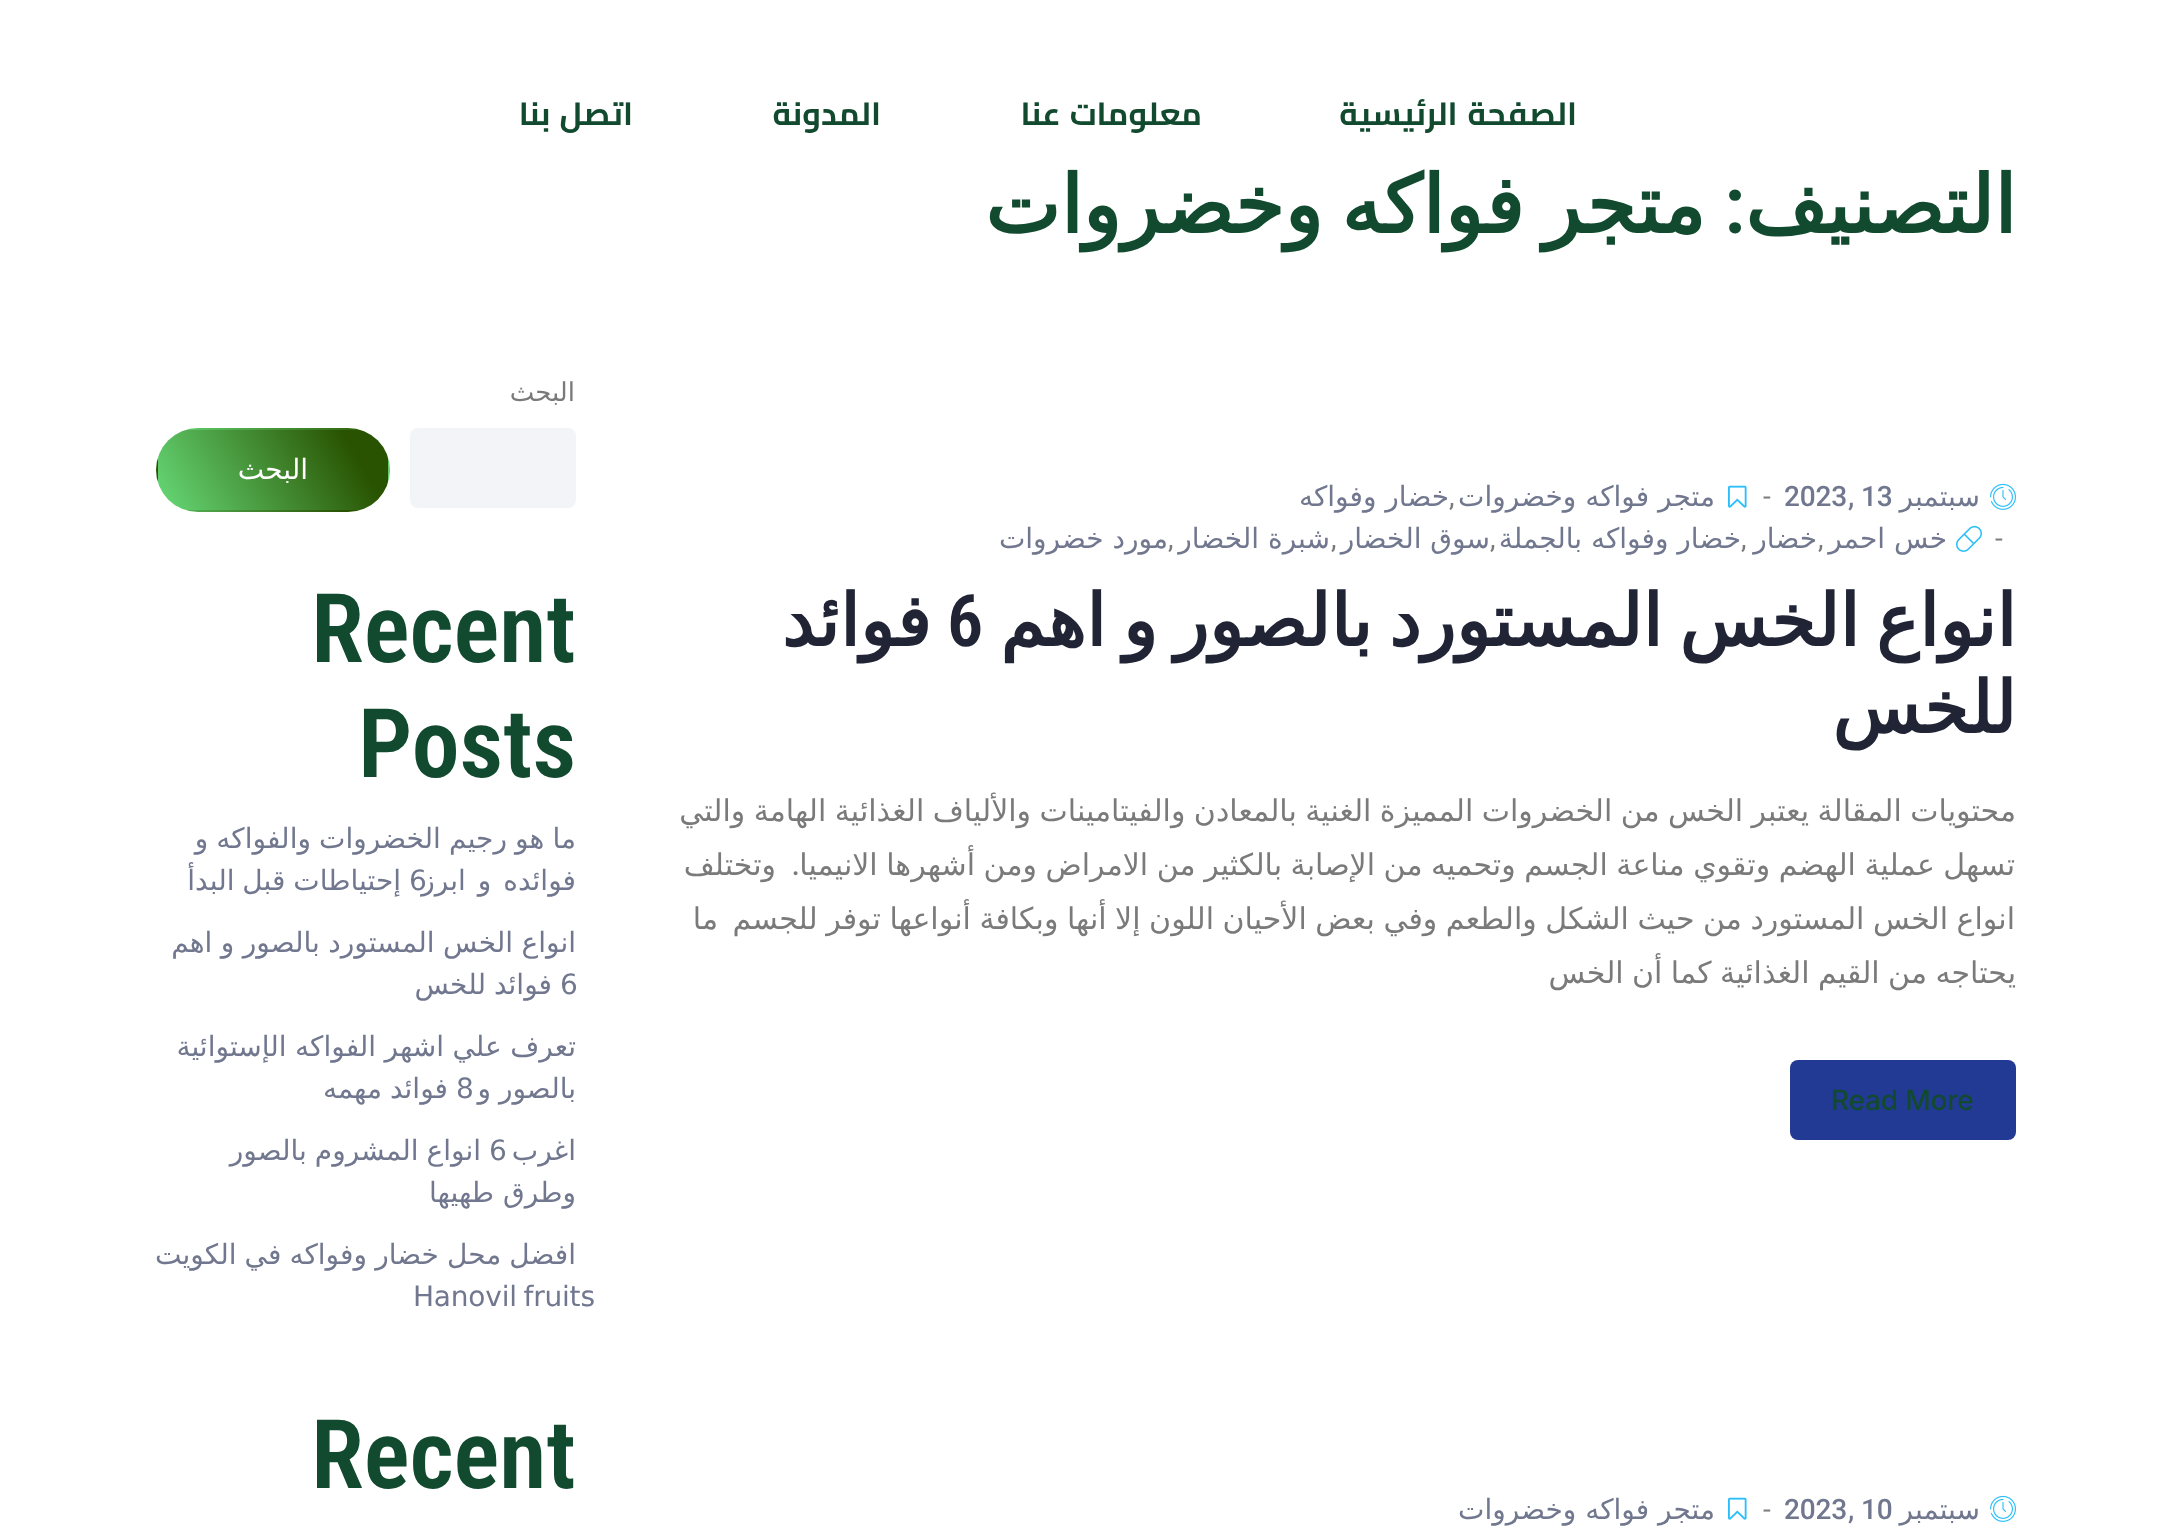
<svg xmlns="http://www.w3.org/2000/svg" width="2172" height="1535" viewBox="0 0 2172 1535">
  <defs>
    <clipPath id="clip1"><rect x="156" y="428" width="234" height="84" rx="42"/></clipPath>
    <linearGradient id="g1" gradientUnits="userSpaceOnUse" x1="377" y1="330" x2="169" y2="450"><stop offset="0.17" stop-color="#295301"/><stop offset="1" stop-color="#67da78"/></linearGradient>
    <linearGradient id="g2" gradientUnits="userSpaceOnUse" x1="147" y1="410" x2="-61" y2="530"><stop offset="0.17" stop-color="#295301"/><stop offset="1" stop-color="#67da78"/></linearGradient>
    <linearGradient id="g3" gradientUnits="userSpaceOnUse" x1="377" y1="410" x2="169" y2="530"><stop offset="0.17" stop-color="#295301"/><stop offset="1" stop-color="#67da78"/></linearGradient>
    <linearGradient id="g4" gradientUnits="userSpaceOnUse" x1="607" y1="410" x2="399" y2="530"><stop offset="0.17" stop-color="#295301"/><stop offset="1" stop-color="#67da78"/></linearGradient>
    <linearGradient id="g5" gradientUnits="userSpaceOnUse" x1="377" y1="490" x2="169" y2="610"><stop offset="0.17" stop-color="#295301"/><stop offset="1" stop-color="#67da78"/></linearGradient>
  </defs>
  <rect width="100%" height="100%" fill="#fff"/>
  <image x="1990" y="483" width="26" height="27" href="img/1.png"/>
  <image x="1728" y="485" width="19" height="23" href="img/2.png"/>
  <image x="1956" y="525" width="26" height="27" href="img/3.png"/>
  <rect x="1790" y="1060" width="226" height="80" rx="8" fill="#233a95"/>
  <image x="1990" y="1495" width="26" height="27" href="img/1.png"/>
  <image x="1728" y="1497" width="19" height="23" href="img/2.png"/>
  <rect x="410" y="428" width="166" height="80" rx="8" fill="#f3f4f7"/>
  <g clip-path="url(#clip1)">
    <path d="M185 428h176v2H185z" fill="url(#g1)"/>
    <path d="M156 457h2v26H156z" fill="url(#g2)"/>
    <path d="M158 430h230v80H158z" fill="url(#g3)"/>
    <path d="M388 457h2v26H388z" fill="url(#g4)"/>
    <path d="M185 510h176v2H185z" fill="url(#g5)"/>
  </g>
  <g font-family="Cairo" font-size="32" font-weight="bold" letter-spacing="-0.2" direction="rtl" fill="#124a2f">
    <text x="1577" y="125" word-spacing="3">الصفحة الرئيسية</text>
    <text x="1202" y="125" word-spacing="2">معلومات عنا</text>
    <text x="881" y="125">المدونة</text>
    <text x="633" y="125" word-spacing="2">اتصل بنا</text>
  </g>
  <text x="2016" y="233" font-family="DejaVu Sans" font-size="80" font-weight="bold" direction="rtl" fill="#124a2f">التصنيف</text>
  <text x="1745" y="233" font-family="Roboto Condensed" font-size="80" font-weight="600" direction="rtl" fill="#124a2f">:</text>
  <text x="1705" y="233" word-spacing="-7" font-family="DejaVu Sans" font-size="80" font-weight="bold" direction="rtl" fill="#124a2f">متجر فواكه وخضروات</text>
  <text x="1980" y="506" font-family="DejaVu Sans" font-size="28" letter-spacing="-0.2" direction="rtl" fill="#71778e">سبتمبر</text>
  <g font-family="Roboto" font-size="28" font-weight="500" letter-spacing="-0.2" fill="#71778e">
    <text x="1861" y="506">13</text>
    <text x="1848" y="506">,</text>
    <text x="1784" y="506">2023</text>
  </g>
  <text x="1763" y="506" font-family="Roboto" font-size="28" letter-spacing="-0.2" fill="#808080">-</text>
  <g font-family="DejaVu Sans" font-size="28" letter-spacing="-0.2" direction="rtl" fill="#71778e">
    <text x="1715" y="506">متجر فواكه وخضروات</text>
    <text x="1449" y="506">خضار وفواكه</text>
  </g>
  <text x="1449" y="506" font-family="Roboto" font-size="28" letter-spacing="-0.2" fill="#7a7a7a">,</text>
  <text x="1995" y="548" font-family="Roboto" font-size="28" letter-spacing="-0.2" fill="#808080">-</text>
  <g font-family="DejaVu Sans" font-size="28" letter-spacing="-0.2" direction="rtl" fill="#71778e">
    <text x="1947" y="548">خس احمر</text>
    <text x="1817" y="548">خضار</text>
    <text x="1741" y="548">خضار وفواكه بالجملة</text>
    <text x="1490" y="548">سوق الخضار</text>
    <text x="1330" y="548">شبرة الخضار</text>
    <text x="1168" y="548">مورد خضروات</text>
  </g>
  <g font-family="Roboto" font-size="28" letter-spacing="-0.2" fill="#7a7a7a">
    <text x="1818" y="548">,</text>
    <text x="1741" y="548">,</text>
    <text x="1490" y="548">,</text>
    <text x="1331" y="548">,</text>
    <text x="1168" y="548">,</text>
  </g>
  <text x="2016" y="646" word-spacing="-6.25" font-family="DejaVu Sans" font-size="72" font-weight="bold" direction="rtl" fill="#202435">انواع الخس المستورد بالصور و اهم</text>
  <text x="947" y="646" font-family="Roboto Condensed" font-size="72" font-weight="600" fill="#202435">6</text>
  <g font-family="DejaVu Sans" font-size="72" font-weight="bold" direction="rtl" fill="#202435">
    <text x="931" y="646">فوائد</text>
    <text x="2016" y="733">للخس</text>
  </g>
  <g font-family="DejaVu Sans" font-size="30" direction="rtl" fill="#7a7a7a">
    <text x="2016" y="821" word-spacing="-1.1">محتويات المقالة يعتبر الخس من الخضروات المميزة الغنية بالمعادن والفيتامينات والألياف الغذائية الهامة والتي</text>
    <text x="2015" y="875" word-spacing="-1">تسهل عملية الهضم وتقوي مناعة الجسم وتحميه من الإصابة بالكثير من الامراض ومن أشهرها الانيميا</text>
  </g>
  <text x="800" y="875" font-family="Inter" font-size="30" direction="rtl" fill="#7a7a7a">.</text>
  <g font-family="DejaVu Sans" font-size="30" direction="rtl" fill="#7a7a7a">
    <text x="776" y="875">وتختلف</text>
    <text x="2015" y="929" word-spacing="-1">انواع الخس المستورد من حيث الشكل والطعم وفي بعض الأحيان اللون إلا أنها وبكافة أنواعها توفر للجسم</text>
    <text x="718" y="929">ما</text>
    <text x="2016" y="983" word-spacing="-1.1">يحتاجه من القيم الغذائية كما أن الخس</text>
  </g>
  <text x="1831" y="1110" font-family="Inter" font-size="28" font-weight="500" letter-spacing="-0.2" fill="#124a2f">Read More</text>
  <text x="1980" y="1519" font-family="DejaVu Sans" font-size="28" letter-spacing="-0.2" direction="rtl" fill="#71778e">سبتمبر</text>
  <g font-family="Roboto" font-size="28" font-weight="500" letter-spacing="-0.2" fill="#71778e">
    <text x="1861" y="1519">10</text>
    <text x="1848" y="1519">,</text>
    <text x="1784" y="1519">2023</text>
  </g>
  <text x="1763" y="1519" font-family="Roboto" font-size="28" letter-spacing="-0.2" fill="#808080">-</text>
  <text x="1715" y="1519" font-family="DejaVu Sans" font-size="28" letter-spacing="-0.2" direction="rtl" fill="#71778e">متجر فواكه وخضروات</text>
  <text x="575" y="401" font-family="DejaVu Sans" font-size="26" letter-spacing="-0.2" direction="rtl" fill="#7a7a7a">البحث</text>
  <text x="308" y="479" font-family="DejaVu Sans" font-size="28" direction="rtl" fill="#fff">البحث</text>
  <g font-family="Roboto Condensed" font-size="96" font-weight="600" fill="#124a2f">
    <text x="311" y="662">Recent</text>
    <text x="358" y="777">Posts</text>
  </g>
  <text x="576" y="848" word-spacing="-0.75" font-family="DejaVu Sans" font-size="28" letter-spacing="-0.2" direction="rtl" fill="#71778e">ما هو رجيم الخضروات والفواكه و</text>
  <text x="409" y="890" font-family="DejaVu Sans" font-size="28" letter-spacing="-0.2" fill="#71778e">6</text>
  <g font-family="DejaVu Sans" font-size="28" letter-spacing="-0.2" direction="rtl" fill="#71778e">
    <text x="576" y="890" word-spacing="3">فوائده و ابرز</text>
    <text x="401" y="890" word-spacing="-1">إحتياطات قبل البدأ</text>
    <text x="576" y="952" word-spacing="-0.5">انواع الخس المستورد بالصور و اهم</text>
  </g>
  <text x="560" y="994" font-family="DejaVu Sans" font-size="28" letter-spacing="-0.2" fill="#71778e">6</text>
  <g font-family="DejaVu Sans" font-size="28" letter-spacing="-0.2" direction="rtl" fill="#71778e">
    <text x="552" y="994" word-spacing="-1">فوائد للخس</text>
    <text x="576" y="1056" word-spacing="-0.5">تعرف علي اشهر الفواكه الإستوائية</text>
    <text x="576" y="1098" word-spacing="-1">بالصور و</text>
  </g>
  <text x="456" y="1098" font-family="DejaVu Sans" font-size="28" letter-spacing="-0.2" fill="#71778e">8</text>
  <g font-family="DejaVu Sans" font-size="28" letter-spacing="-0.2" direction="rtl" fill="#71778e">
    <text x="448" y="1098" word-spacing="-1">فوائد مهمه</text>
    <text x="576" y="1160">اغرب</text>
  </g>
  <text x="489" y="1160" font-family="DejaVu Sans" font-size="28" letter-spacing="-0.2" fill="#71778e">6</text>
  <g font-family="DejaVu Sans" font-size="28" letter-spacing="-0.2" direction="rtl" fill="#71778e">
    <text x="481" y="1160" word-spacing="-1">انواع المشروم بالصور</text>
    <text x="576" y="1202">وطرق طهيها</text>
    <text x="576" y="1264" word-spacing="-0.75">افضل محل خضار وفواكه في الكويت</text>
  </g>
  <text x="413" y="1306" word-spacing="-2" font-family="DejaVu Sans" font-size="28" letter-spacing="-0.2" fill="#71778e">Hanovil fruits</text>
  <text x="311" y="1488" font-family="Roboto Condensed" font-size="96" font-weight="600" fill="#124a2f">Recent</text>
</svg>
